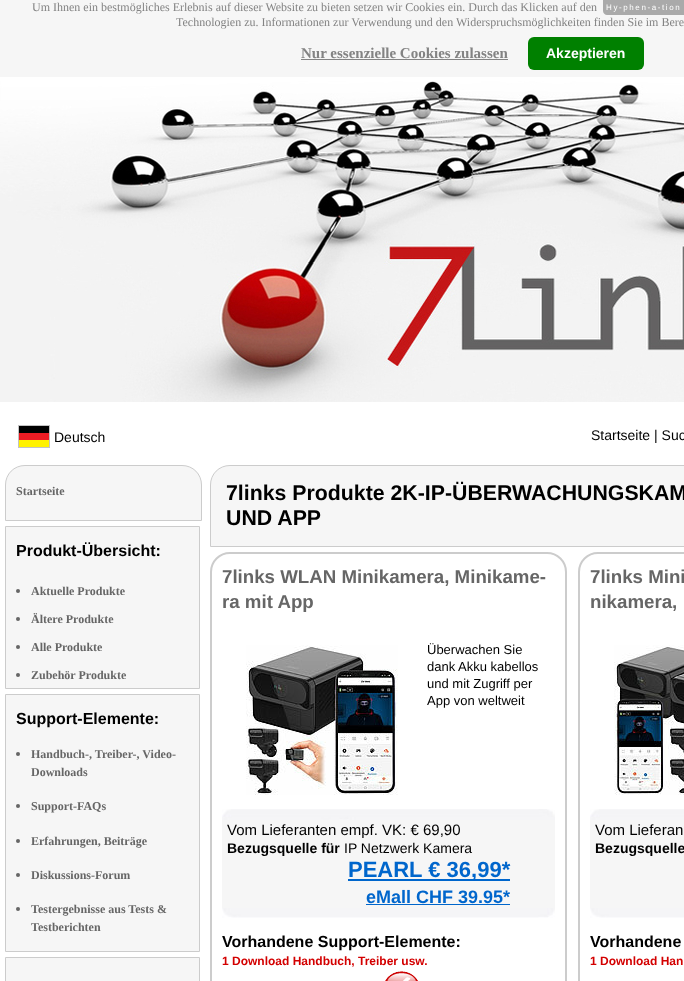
<svg xmlns="http://www.w3.org/2000/svg" width="684" height="981" viewBox="0 0 684 981">
  <rect width="100%" height="100%" fill="#fff"/>
  <path d="M0 0h684v77H0z" fill="#f6f6f6"/>
  <path d="M301 59h207v1H301z" fill="#838383"/>
  <rect x="528" y="37" width="116" height="33" rx="6" fill="#008000"/>
  <image x="0" y="81" width="684" height="321" href="img/1.png"/>
  <image x="18" y="425" width="32" height="23" href="img/2.png"/>
  <path d="M25 465.5H182C193 465.5 201.5 474 201.5 485V520.5H5.5V485C5.5 474 14 465.5 25 465.5Z" fill="#f6f6f6" stroke="#ccc"/>
  <path d="M5.5 526.5h194v162H5.5z" fill="#f6f6f6" stroke="#ccc"/>
  <circle cx="18" cy="591" r="2" fill="#666"/>
  <circle cx="18" cy="619" r="2" fill="#666"/>
  <circle cx="18" cy="647" r="2" fill="#666"/>
  <circle cx="18" cy="675" r="2" fill="#666"/>
  <path d="M5.5 694.5h194v257H5.5z" fill="#f6f6f6" stroke="#ccc"/>
  <circle cx="18" cy="754" r="2" fill="#666"/>
  <circle cx="18" cy="806" r="2" fill="#666"/>
  <circle cx="18" cy="841" r="2" fill="#666"/>
  <circle cx="18" cy="875" r="2" fill="#666"/>
  <circle cx="18" cy="909" r="2" fill="#666"/>
  <path d="M5.5 957.5h194v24H5.5z" fill="#f6f6f6" stroke="#ccc"/>
  <path d="M230 465.5H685C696 465.5 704.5 474 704.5 485V546.5H210.5V485C210.5 474 219 465.5 230 465.5Z" fill="#f6f6f6" stroke="#ccc"/>
  <rect x="211" y="553" width="355" height="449" rx="19" fill="none" stroke="#ccc" stroke-width="2"/>
  <image x="246" y="645" width="152" height="150" href="img/3.png"/>
  <image x="222" y="809" width="333" height="11" href="img/4.png"/>
  <path d="M222 820h333v88H222z" fill="#f6f6f6"/>
  <path d="M348 879h162v2H348z" fill="#06c"/>
  <path d="M366 904h144v1H366z" fill="#06c"/>
  <image x="222" y="908" width="333" height="10" href="img/5.png"/>
  <image x="385" y="971" width="33" height="10" href="img/6.png"/>
  <rect x="579" y="553" width="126" height="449" rx="19" fill="none" stroke="#ccc" stroke-width="2"/>
  <image x="614" y="645" width="70" height="150" href="img/7.png"/>
  <image x="590" y="809" width="94" height="11" href="img/8.png"/>
  <path d="M590 820h94v88H590z" fill="#f6f6f6"/>
  <image x="590" y="908" width="94" height="10" href="img/9.png"/>
  <path d="M603 0H684V15H607C605 15 603 13 603 11Z" fill="#aaa"/>
  <g font-family="Liberation Serif" font-size="12" fill="#838383">
    <text x="32" y="11">Um Ihnen ein bestmögliches Erlebnis auf dieser Website zu bieten setzen wir Cookies ein. Durch das Klicken auf den</text>
    <text x="176" y="26">Technologien zu. Informationen zur Verwendung und den Widerspruchsmöglichkeiten finden Sie im Bere</text>
  </g>
  <text x="301" y="58" font-family="Liberation Serif" font-size="15" font-weight="bold" fill="#838383">Nur essenzielle Cookies zulassen</text>
  <text x="546" y="58" font-family="Liberation Sans" font-size="14" font-weight="bold" fill="#fff">Akzeptieren</text>
  <g font-family="Liberation Sans" font-size="14" fill="#000">
    <text x="54" y="442">Deutsch</text>
    <text x="591" y="440">Startseite | Suc</text>
  </g>
  <text x="16" y="495" font-family="Liberation Serif" font-size="12" font-weight="bold" fill="#666">Startseite</text>
  <text x="16" y="556" font-family="Liberation Sans" font-size="16" font-weight="bold" fill="#000">Produkt-Übersicht:</text>
  <g font-family="Liberation Serif" font-size="12" font-weight="bold" fill="#666">
    <text x="31" y="595">Aktuelle Produkte</text>
    <text x="31" y="623">Ältere Produkte</text>
    <text x="31" y="651">Alle Produkte</text>
    <text x="31" y="679">Zubehör Produkte</text>
  </g>
  <text x="16" y="724" font-family="Liberation Sans" font-size="16" font-weight="bold" fill="#000">Support-Elemente:</text>
  <g font-family="Liberation Serif" font-size="12" font-weight="bold" fill="#666">
    <text x="31" y="758">Handbuch-, Treiber-, Video-</text>
    <text x="31" y="776">Downloads</text>
    <text x="31" y="810">Support-FAQs</text>
    <text x="31" y="845">Erfahrungen, Beiträge</text>
    <text x="31" y="879">Diskussions-Forum</text>
    <text x="31" y="913">Testergebnisse aus Tests &amp;</text>
    <text x="31" y="931">Testberichten</text>
  </g>
  <g font-family="Liberation Sans" font-size="21.3" font-weight="bold" fill="#000">
    <text x="226" y="500">7links Produkte 2K-IP-ÜBERWACHUNGSKAM</text>
    <text x="226" y="525">UND APP</text>
  </g>
  <g font-family="Liberation Sans" font-size="18.7" font-weight="bold" fill="#666">
    <text x="222" y="583">7links WLAN Minikamera, Minikame-</text>
    <text x="222" y="608">ra mit App</text>
  </g>
  <g font-family="Liberation Sans" font-size="13" fill="#000">
    <text x="427" y="654">Überwachen Sie</text>
    <text x="427" y="671">dank Akku kabellos</text>
    <text x="427" y="688">und mit Zugriff per</text>
    <text x="427" y="705">App von weltweit</text>
  </g>
  <text x="227" y="835" font-family="Liberation Sans" font-size="15" fill="#000">Vom Lieferanten empf. VK: € 69,90</text>
  <text x="227" y="853" font-family="Liberation Sans" font-size="14" font-weight="bold" fill="#000">Bezugsquelle für</text>
  <text x="344" y="853" font-family="Liberation Sans" font-size="14" fill="#000">IP Netzwerk Kamera</text>
  <text x="348" y="877" font-family="Liberation Sans" font-size="22" font-weight="bold" fill="#06c">PEARL € 36,99*</text>
  <text x="366" y="903" font-family="Liberation Sans" font-size="18" font-weight="bold" fill="#06c">eMall CHF 39.95*</text>
  <text x="222" y="947" font-family="Liberation Sans" font-size="16" font-weight="bold" fill="#000">Vorhandene Support-Elemente:</text>
  <text x="222" y="965" font-family="Liberation Sans" font-size="12" font-weight="bold" fill="#d30000">1 Download Handbuch, Treiber usw.</text>
  <g font-family="Liberation Sans" font-size="18.7" font-weight="bold" fill="#666">
    <text x="590" y="583">7links Mini</text>
    <text x="590" y="608">nikamera,</text>
  </g>
  <text x="595" y="835" font-family="Liberation Sans" font-size="15" fill="#000">Vom Lieferan</text>
  <text x="595" y="853" font-family="Liberation Sans" font-size="14" font-weight="bold" fill="#000">Bezugsquelle</text>
  <text x="590" y="947" font-family="Liberation Sans" font-size="16" font-weight="bold" fill="#000">Vorhandene</text>
  <text x="590" y="965" font-family="Liberation Sans" font-size="12" font-weight="bold" fill="#d30000">1 Download Han</text>
  <text x="606" y="10" font-family="Liberation Sans" font-size="8" letter-spacing="1.6" fill="#fff">Hy-phen-a-tion</text>
</svg>
